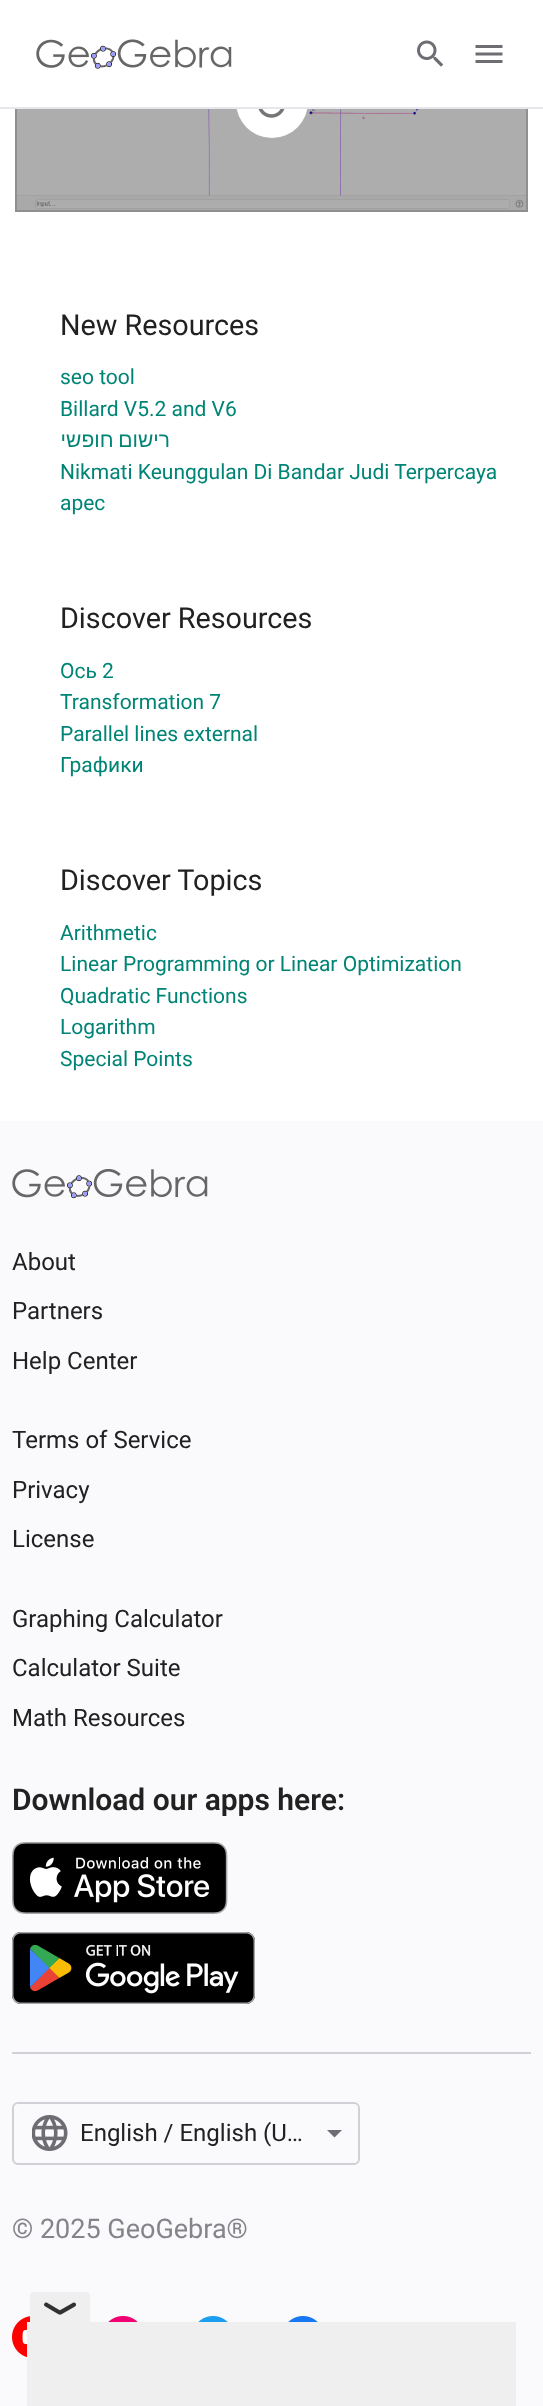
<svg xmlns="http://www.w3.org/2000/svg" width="543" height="2406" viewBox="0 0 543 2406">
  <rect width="100%" height="100%" fill="#fff"/>
  <image x="17" y="109" width="509" height="101" href="img/5.png"/>
  <path d="M16 -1h511v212H16z" fill="none" stroke="#8f8f8f" stroke-width="2"/>
  <circle cx="272" cy="102" r="36" fill="#fff"/>
  <path d="M15 0h513v107H15z" fill="#fff"/>
  <path d="M0 107h543v2H0z" fill="#e6e6eb"/>
  <image x="36" y="39" width="196" height="30" href="img/1.png"/>
  <image x="417" y="40" width="27" height="27" href="img/2.png"/>
  <image x="475" y="45" width="28" height="18" href="img/3.png"/>
  <image x="258" y="109" width="27" height="9" href="img/4.png"/>
  <path d="M0 1121h543v1285H0z" fill="#fafafc"/>
  <image x="12" y="1169" width="196" height="30" href="img/6.png"/>
  <image x="12" y="1842" width="216" height="72" href="img/7.png"/>
  <image x="12" y="1932" width="243" height="72" href="img/8.png"/>
  <path d="M12 2052h519v2H12z" fill="#d1d0d6"/>
  <rect x="13" y="2103" width="346" height="61" rx="5" fill="none" stroke="#d1d0d6" stroke-width="2"/>
  <image x="32" y="2115" width="36" height="36" href="img/9.png"/>
  <path d="M327 2130L334.5 2137.5L342 2130Z" fill="#6e6d73"/>
  <image x="12" y="2316" width="18" height="42" href="img/10.png"/>
  <image x="108" y="2316" width="30" height="6" href="img/11.png"/>
  <image x="198" y="2316" width="30" height="6" href="img/12.png"/>
  <image x="288" y="2316" width="30" height="6" href="img/13.png"/>
  <path d="M33 2292H87C88.5 2292 90 2293.5 90 2295V2322H30V2295C30 2293.5 31.5 2292 33 2292Z" fill="#efefef"/>
  <path d="M47.5 2303L61 2311C62.5 2313 60.5 2315.5 58 2314L44.5 2306C43 2304 45.5 2301.5 47.5 2303Z" fill="#313131"/>
  <path d="M59.5 2310.5L73.5 2302.5C76 2302 77 2305.5 75 2306.5L61 2314.5C58.5 2315 57.5 2311.5 59.5 2310.5Z" fill="#313131"/>
  <path d="M27 2322h489v84H27z" fill="#efefef"/>
  <text x="60" y="335" font-family="Roboto" font-size="28.75" fill="#212121">New Resources</text>
  <g font-family="Roboto" font-size="21" fill="#008475">
    <text x="60" y="384">seo tool</text>
    <text x="60" y="416">Billard V5.2 and V6</text>
  </g>
  <text x="170" y="447" word-spacing="-1" font-family="Liberation Sans" font-size="21" direction="rtl" fill="#008475">רישום חופשי</text>
  <g font-family="Roboto" font-size="21" fill="#008475">
    <text x="60" y="479">Nikmati Keunggulan Di Bandar Judi Terpercaya</text>
    <text x="60" y="510">apec</text>
  </g>
  <text x="60" y="628" font-family="Roboto" font-size="28.75" fill="#212121">Discover Resources</text>
  <g font-family="Roboto" font-size="21" fill="#008475">
    <text x="60" y="678">Ось 2</text>
    <text x="60" y="709">Transformation 7</text>
    <text x="60" y="741">Parallel lines external</text>
    <text x="60" y="772">Графики</text>
  </g>
  <text x="60" y="890" font-family="Roboto" font-size="28.75" fill="#212121">Discover Topics</text>
  <g font-family="Roboto" font-size="21" fill="#008475">
    <text x="60" y="940">Arithmetic</text>
    <text x="60" y="971">Linear Programming or Linear Optimization</text>
    <text x="60" y="1003">Quadratic Functions</text>
    <text x="60" y="1034">Logarithm</text>
    <text x="60" y="1066">Special Points</text>
  </g>
  <g font-family="Roboto" font-size="24" fill="#212121">
    <text x="12" y="1270">About</text>
    <text x="12" y="1319">Partners</text>
    <text x="12" y="1369">Help Center</text>
    <text x="12" y="1448">Terms of Service</text>
    <text x="12" y="1498">Privacy</text>
    <text x="12" y="1547">License</text>
    <text x="12" y="1627">Graphing Calculator</text>
    <text x="12" y="1676">Calculator Suite</text>
    <text x="12" y="1726">Math Resources</text>
  </g>
  <text x="12" y="1810" font-family="Roboto" font-size="30" font-weight="600" fill="#212121">Download our apps here:</text>
  <text x="80" y="2141" font-family="Roboto" font-size="24" fill="#212121">English / English (U…</text>
  <text x="12" y="2238" font-family="Roboto" font-size="27" fill="#85848a">© 2025 GeoGebra®</text>
</svg>
